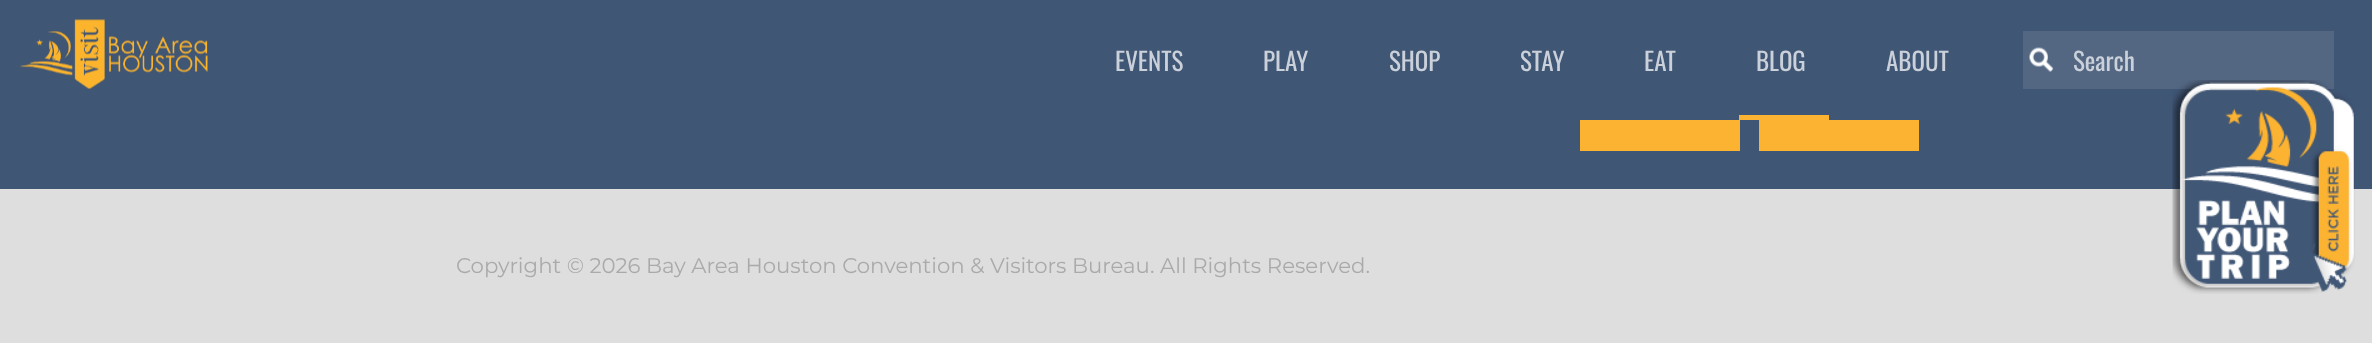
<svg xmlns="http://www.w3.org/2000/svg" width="2372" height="343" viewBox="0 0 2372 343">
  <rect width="100%" height="100%" fill="#405675"/>
  <image x="20" y="19" width="188" height="70" href="img/1.png"/>
  <path d="M1739 115h90v5H1739z" fill="#fcb332"/>
  <path d="M2023 31h311v58H2023z" fill="#536783"/>
  <image x="2029" y="47" width="24" height="25" href="img/2.png"/>
  <path d="M1580 120h160v31H1580z" fill="#fcb332"/>
  <path d="M1759 120h160v31H1759z" fill="#fcb332"/>
  <path d="M0 189h2372v154H0z" fill="#dedede"/>
  <image x="2172" y="80" width="183" height="214" href="img/3.png"/>
  <g font-family="Oswald" font-size="25" fill="#cbd1da">
    <text x="1115" y="71">EVENTS</text>
    <text x="1263" y="71">PLAY</text>
    <text x="1389" y="71">SHOP</text>
    <text x="1520" y="71">STAY</text>
    <text x="1644" y="71">EAT</text>
    <text x="1756" y="71">BLOG</text>
    <text x="1886" y="71">ABOUT</text>
    <text x="2073" y="71">Search</text>
  </g>
  <text x="456" y="273" font-family="Montserrat" font-size="21.25" fill="#aaa">Copyright © 2026 Bay Area Houston Convention &amp; Visitors Bureau. All Rights Reserved.</text>
</svg>
